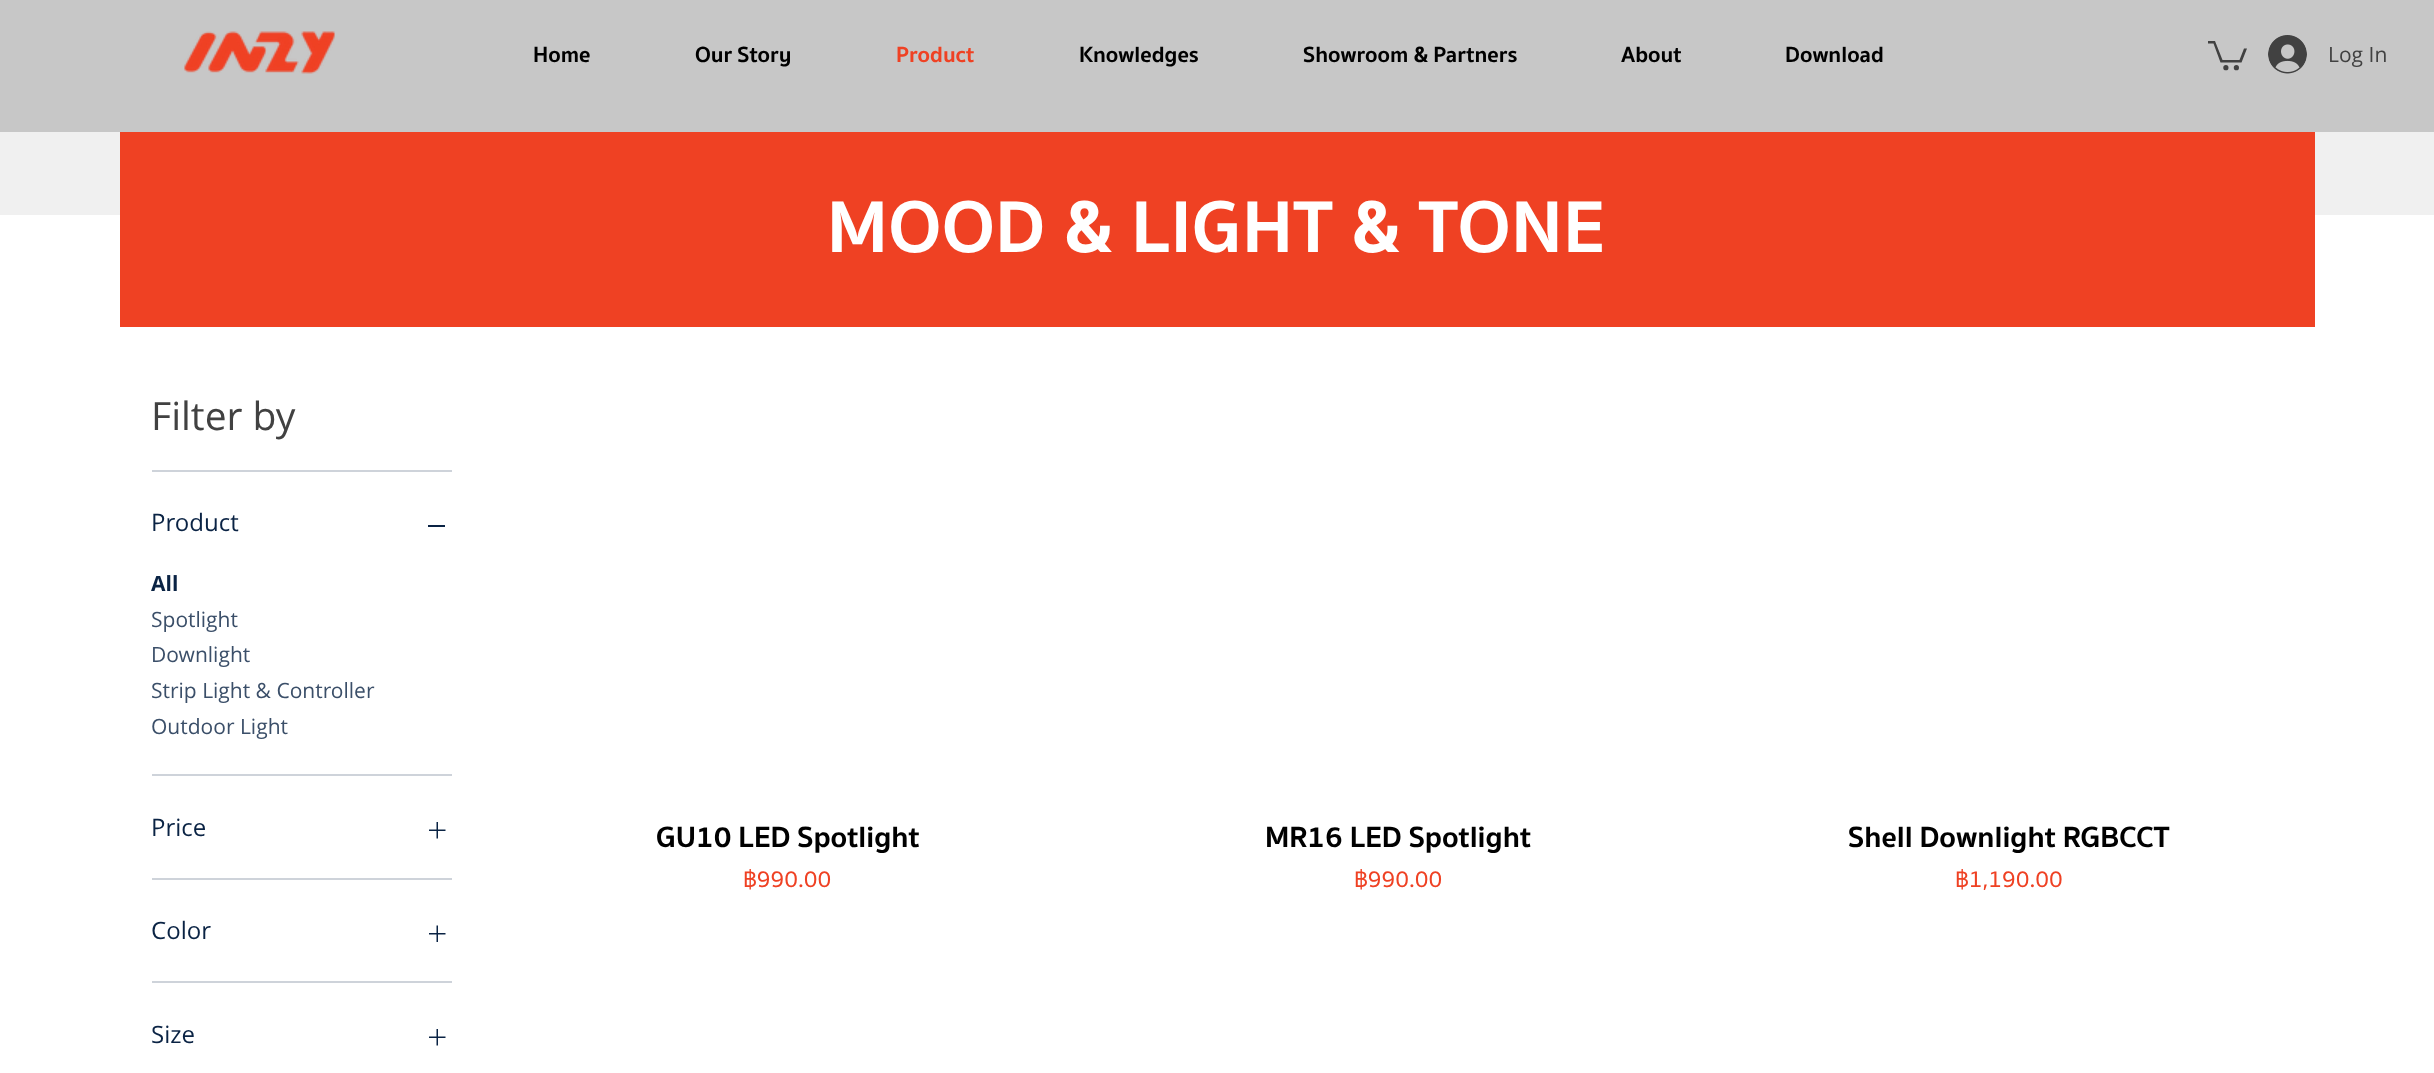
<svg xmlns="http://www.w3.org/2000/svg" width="2434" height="1073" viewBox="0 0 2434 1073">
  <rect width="100%" height="100%" fill="#fff"/>
  <path d="M0 0h2434v132H0z" fill="#c7c7c7"/>
  <image x="184" y="31" width="151" height="43" href="img/1.png"/>
  <path d="M2247 48.5L2241.5 62.5H2220.5L2213.5 43.5H2208V41H2215L2222.5 60H2239.5L2244 48.5" fill="#414141"/>
  <circle cx="2236.4" cy="67.7" r="2.6" fill="#414141"/>
  <circle cx="2225.9" cy="67.7" r="2.6" fill="#414141"/>
  <image x="2268" y="35" width="39" height="39" href="img/2.png"/>
  <path d="M0 132h2434v83H0z" fill="#f0f0f0"/>
  <path d="M120 132h2195v195H120z" fill="#ef4123"/>
  <path d="M152 470h300v2H152z" fill="#ced3da"/>
  <path d="M152 774h300v2H152z" fill="#ced3da"/>
  <path d="M428 525h17v2H428z" fill="#0a2344"/>
  <path d="M152 878h300v2H152z" fill="#ced3da"/>
  <image x="429" y="822" width="17" height="17" href="img/3.png"/>
  <path d="M152 981h300v2H152z" fill="#ced3da"/>
  <image x="429" y="925" width="17" height="17" href="img/4.png"/>
  <image x="429" y="1029" width="17" height="17" href="img/3.png"/>
  <g font-family="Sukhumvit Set" font-size="22.5" font-weight="bold" fill="#000">
    <text x="533" y="62">Home</text>
    <text x="695" y="62">Our Story</text>
  </g>
  <text x="896" y="62" font-family="Sukhumvit Set" font-size="22.5" font-weight="bold" fill="#ef4123">Product</text>
  <g font-family="Sukhumvit Set" font-size="22.5" font-weight="bold" fill="#000">
    <text x="1079" y="62">Knowledges</text>
    <text x="1303" y="62">Showroom &amp; Partners</text>
    <text x="1621" y="62">About</text>
    <text x="1785" y="62">Download</text>
  </g>
  <text x="2328" y="62" font-family="Open Sans" font-size="21" fill="#414141">Log In</text>
  <text x="827" y="252" font-family="Sukhumvit Set" font-size="75" font-weight="bold" letter-spacing="0.75" fill="#fff">MOOD &amp; LIGHT &amp; TONE</text>
  <text x="151" y="430" font-family="Open Sans" font-size="39" fill="#414141">Filter by</text>
  <text x="151" y="531" font-family="Open Sans" font-size="24" fill="#0a2344">Product</text>
  <text x="151" y="591" font-family="Open Sans" font-size="21" font-weight="bold" fill="#0a2344">All</text>
  <g font-family="Open Sans" font-size="21" fill="#3b4f69">
    <text x="151" y="627">Spotlight</text>
    <text x="151" y="662">Downlight</text>
    <text x="151" y="698">Strip Light &amp; Controller</text>
    <text x="151" y="734">Outdoor Light</text>
  </g>
  <g font-family="Open Sans" font-size="24" fill="#0a2344">
    <text x="151" y="836">Price</text>
    <text x="151" y="939">Color</text>
    <text x="151" y="1043">Size</text>
  </g>
  <text x="656" y="847" font-family="Sukhumvit Set" font-size="30" font-weight="bold" fill="#000">GU10 LED Spotlight</text>
  <text x="743" y="887" font-family="Sukhumvit Set" font-size="24" font-weight="500" fill="#ef4123">฿990.00</text>
  <text x="1265" y="847" font-family="Sukhumvit Set" font-size="30" font-weight="bold" fill="#000">MR16 LED Spotlight</text>
  <text x="1354" y="887" font-family="Sukhumvit Set" font-size="24" font-weight="500" fill="#ef4123">฿990.00</text>
  <text x="1848" y="847" font-family="Sukhumvit Set" font-size="30" font-weight="bold" fill="#000">Shell Downlight RGBCCT</text>
  <text x="1955" y="887" font-family="Sukhumvit Set" font-size="24" font-weight="500" fill="#ef4123">฿1,190.00</text>
</svg>
